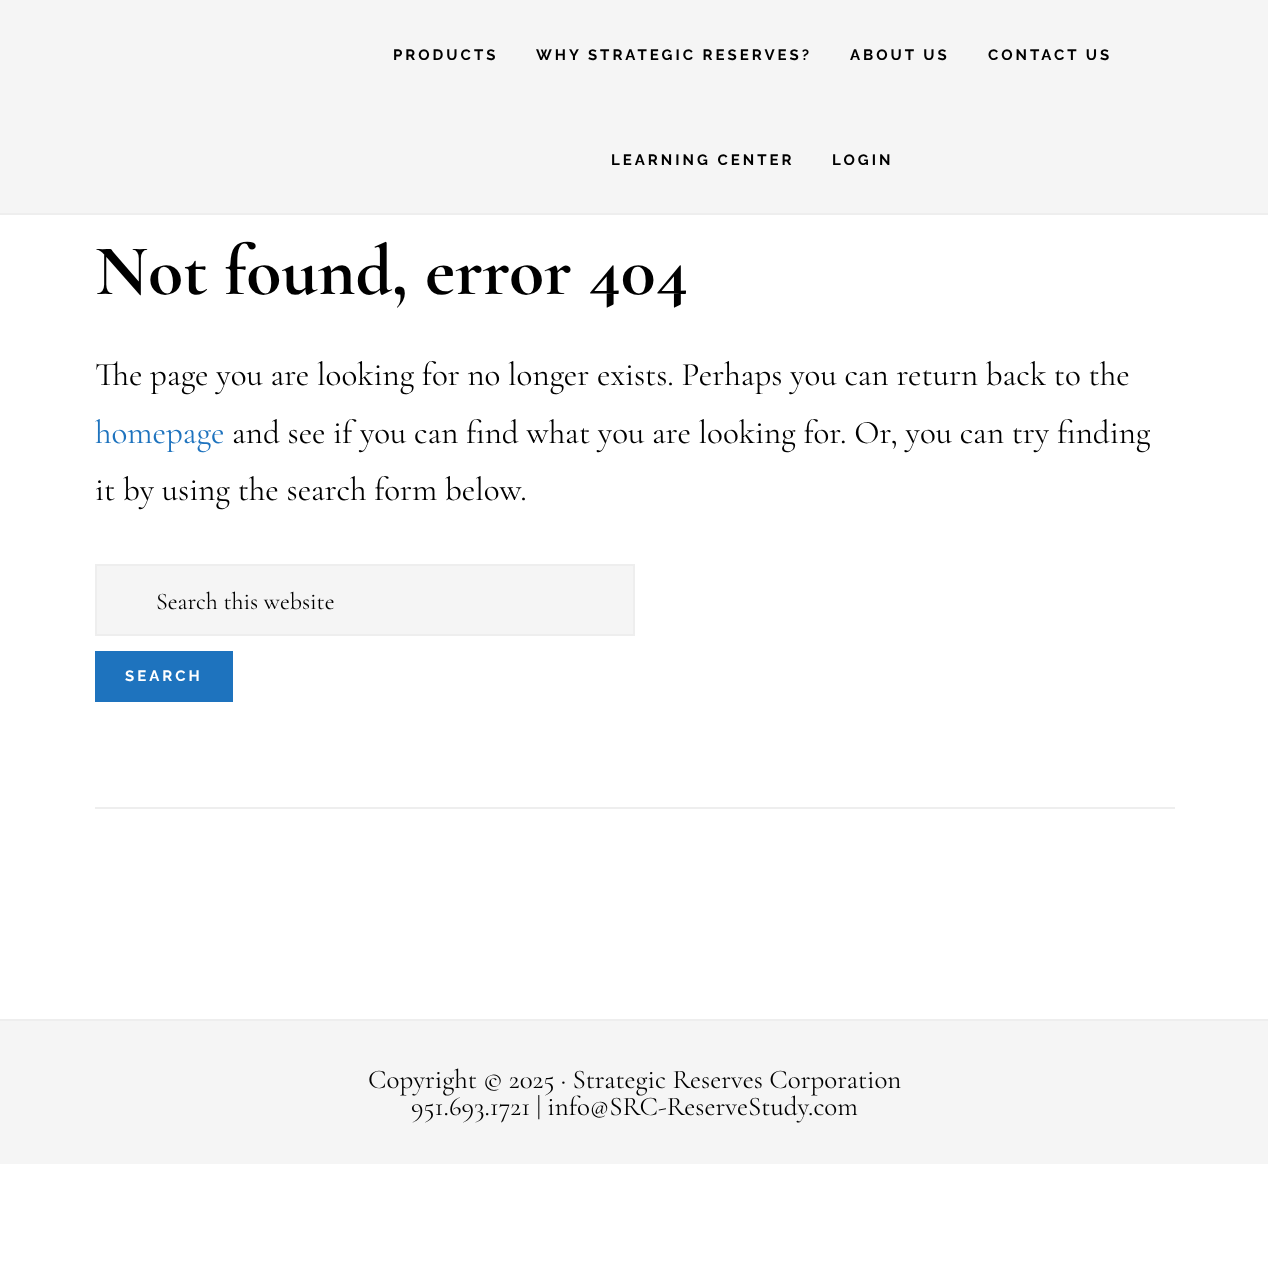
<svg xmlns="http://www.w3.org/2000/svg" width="1268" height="1268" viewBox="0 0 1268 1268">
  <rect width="100%" height="100%" fill="#fff"/>
  <path d="M0 0h1268v213H0z" fill="#f5f5f5"/>
  <path d="M0 213h1268v2H0z" fill="#eee"/>
  <path d="M95 807h1080v2H95z" fill="#eee"/>
  <path d="M96 565h538v70H96z" fill="#f5f5f5" stroke="#eee" stroke-width="2"/>
  <path d="M95 651h138v51H95z" fill="#1e73be"/>
  <path d="M0 1021h1268v143H0z" fill="#f5f5f5"/>
  <path d="M0 1019h1268v2H0z" fill="#eee"/>
  <g font-family="Raleway" font-size="15" font-weight="100" letter-spacing="3" fill="#000">
    <text x="393" y="60">PRODUCTS</text>
    <text x="536" y="60">WHY STRATEGIC RESERVES?</text>
    <text x="850" y="60">ABOUT US</text>
    <text x="988" y="60">CONTACT US</text>
    <text x="611" y="165">LEARNING CENTER</text>
    <text x="832" y="165">LOGIN</text>
  </g>
  <text x="95" y="294" font-family="Cormorant Garamond" font-size="72" font-weight="bold" fill="#000">Not found, error 404</text>
  <text x="95" y="385" font-family="Cormorant Garamond" font-size="33" fill="#000">The page you are looking for no longer exists. Perhaps you can return back to the</text>
  <text x="95" y="443" font-family="Cormorant Garamond" font-size="33" fill="#1e73be">homepage</text>
  <g font-family="Cormorant Garamond" font-size="33" fill="#000">
    <text x="232" y="443">and see if you can find what you are looking for. Or, you can try finding</text>
    <text x="95" y="500">it by using the search form below.</text>
  </g>
  <text x="156" y="609" font-family="Cormorant Garamond" font-size="24" fill="#000">Search this website</text>
  <text x="125" y="681" font-family="Raleway" font-size="15" font-weight="100" letter-spacing="3" fill="#fff">SEARCH</text>
  <g font-family="Cormorant Garamond" font-size="27" fill="#000">
    <text x="368" y="1088">Copyright © 2025 · Strategic Reserves Corporation</text>
    <text x="411" y="1115">951.693.1721 | info@SRC-ReserveStudy.com</text>
  </g>
</svg>
